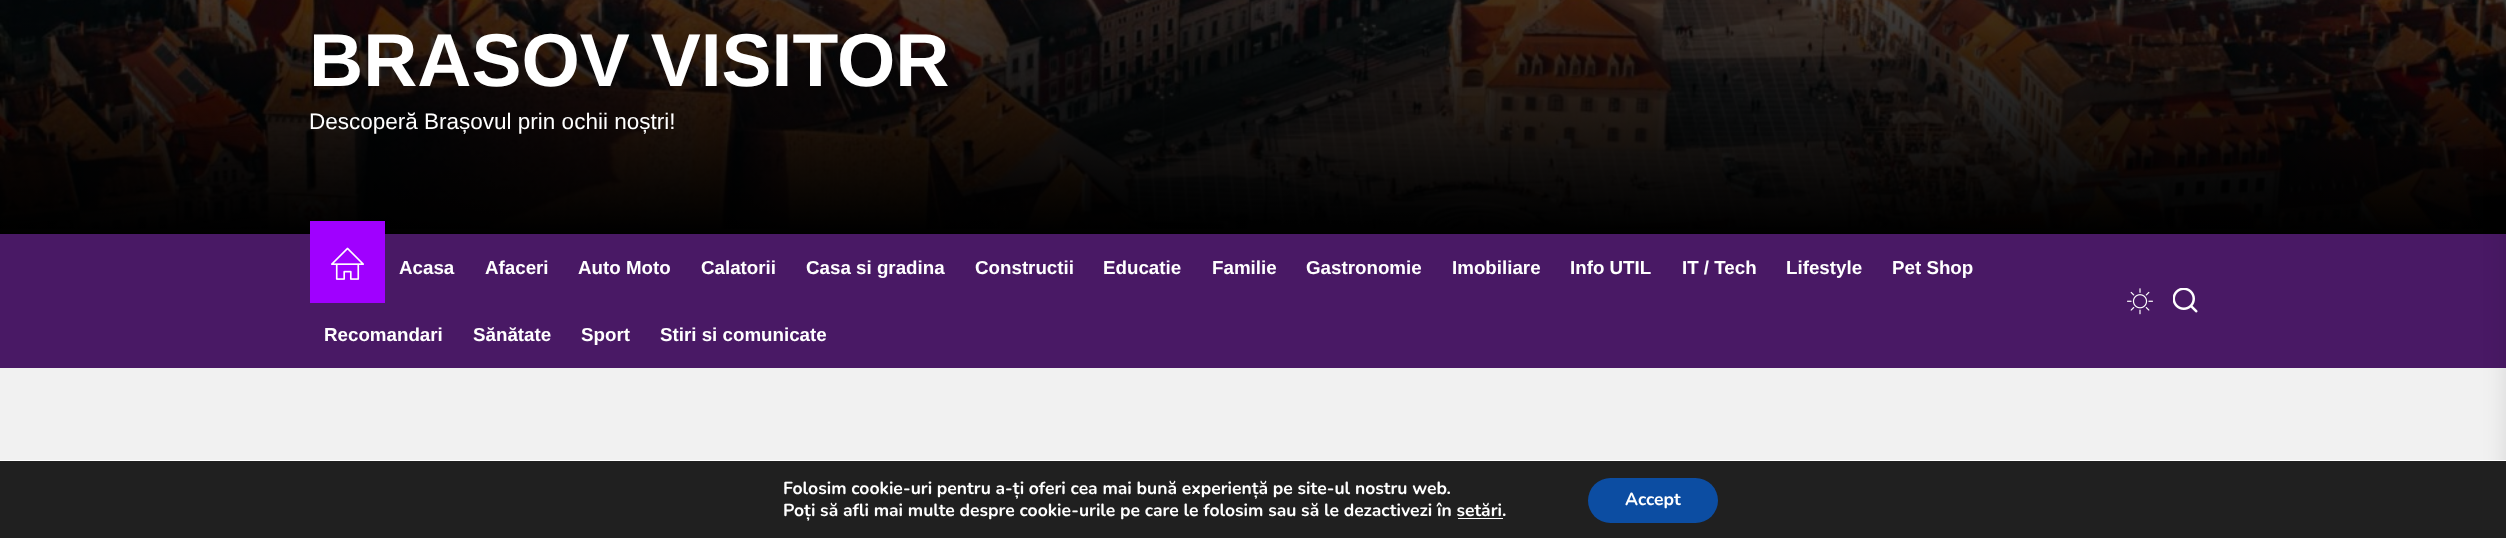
<svg xmlns="http://www.w3.org/2000/svg" width="2506" height="538" viewBox="0 0 2506 538">
  <defs>
    <linearGradient id="g1" gradientUnits="userSpaceOnUse" x1="1253" y1="-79" x2="1253" y2="234"><stop offset="0" stop-color="#000" stop-opacity="0.65"/><stop offset="1" stop-color="#000"/></linearGradient>
  </defs>
  <rect width="100%" height="100%" fill="#f1f1f1"/>
  <image x="0" y="0" width="2506" height="229" href="img/1.png"/>
  <path d="M0 0h2506v234H0z" fill="url(#g1)"/>
  <path d="M0 234h2506v134H0z" fill="#491965"/>
  <path d="M310 221h75v82H310z" fill="#a000ff"/>
  <image x="331" y="247" width="33" height="33" href="img/2.png"/>
  <image x="2127" y="288" width="26" height="27" href="img/3.png"/>
  <image x="2173" y="288" width="25" height="25" href="img/4.png"/>
  <path d="M2506 0h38v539H2506z" fill="#0000001a" filter="blur(12.5px)"/>
  <path d="M0 461h2506v77H0z" fill="#202020"/>
  <path d="M0 460h2506v1H0z" fill="#fff"/>
  <path d="M1458 518h45v1H1458z" fill="#fff"/>
  <rect x="1588" y="478" width="130" height="45" rx="22.5" fill="#0c4da2"/>
  <text x="309" y="86" font-family="Liberation Sans" font-size="75" font-weight="bold" fill="#fff">BRASOV VISITOR</text>
  <text x="309" y="129" font-family="Liberation Sans" font-size="22.5" fill="#fff">Descoperă Brașovul prin ochii noștri!</text>
  <g font-family="Liberation Sans" font-size="18.75" font-weight="bold" fill="#fff">
    <text x="399" y="274">Acasa</text>
    <text x="485" y="274">Afaceri</text>
    <text x="578" y="274">Auto Moto</text>
    <text x="701" y="274">Calatorii</text>
    <text x="806" y="274">Casa si gradina</text>
    <text x="975" y="274">Constructii</text>
    <text x="1103" y="274">Educatie</text>
    <text x="1212" y="274">Familie</text>
    <text x="1306" y="274">Gastronomie</text>
    <text x="1452" y="274">Imobiliare</text>
    <text x="1570" y="274">Info UTIL</text>
    <text x="1682" y="274">IT / Tech</text>
    <text x="1786" y="274">Lifestyle</text>
    <text x="1892" y="274">Pet Shop</text>
    <text x="324" y="341">Recomandari</text>
    <text x="473" y="341">Sănătate</text>
    <text x="581" y="341">Sport</text>
    <text x="660" y="341">Stiri si comunicate</text>
  </g>
  <g font-family="Nunito" font-size="17.5" font-weight="bold" fill="#fff">
    <text x="783" y="494">Folosim cookie-uri pentru a-ți oferi cea mai bună experiență pe site-ul nostru web.</text>
    <text x="783" y="516">Poți să afli mai multe despre cookie-urile pe care le folosim sau să le dezactivezi în setări.</text>
    <text x="1625" y="505">Accept</text>
  </g>
</svg>
